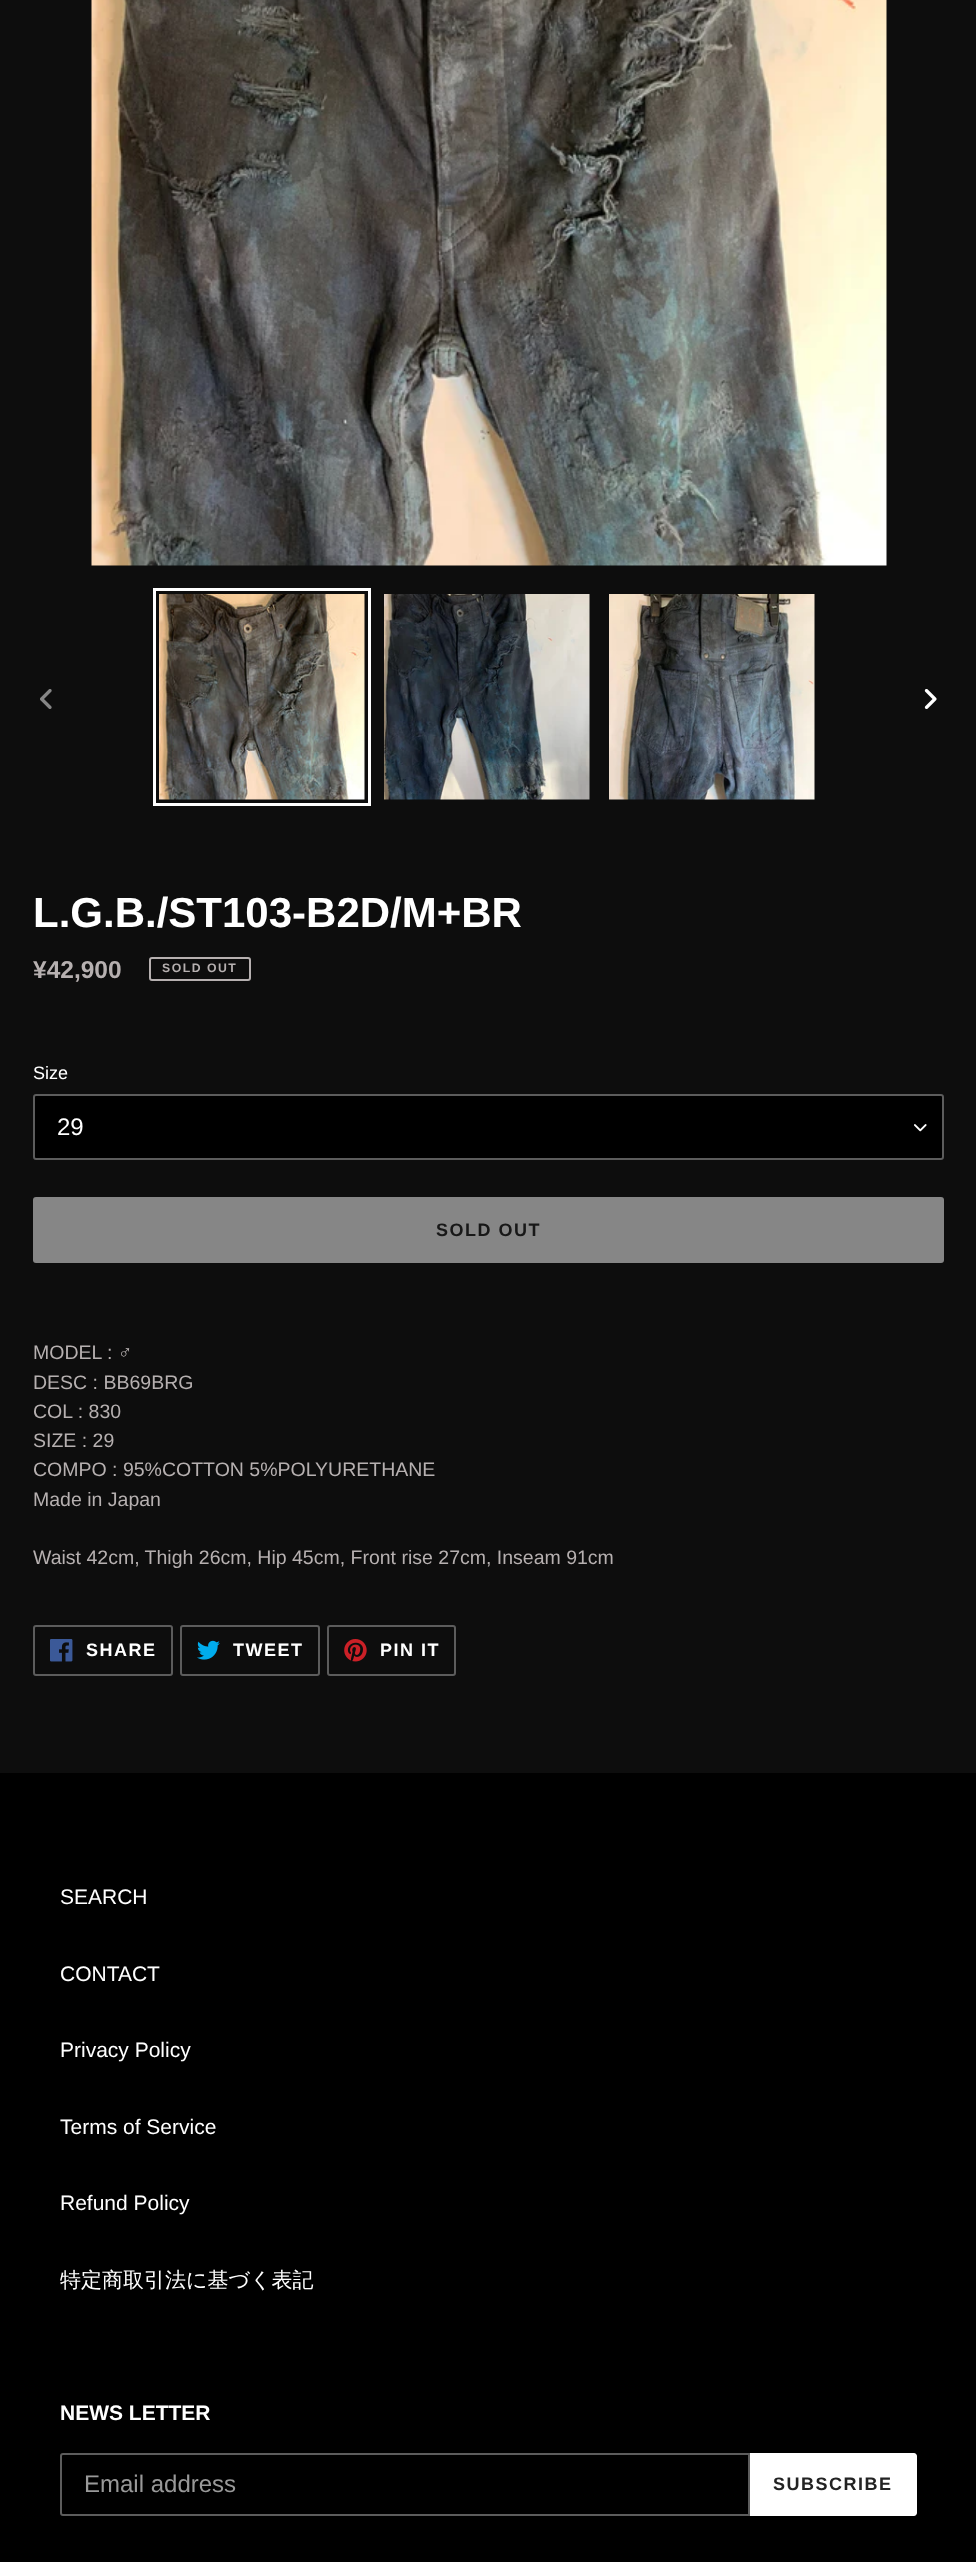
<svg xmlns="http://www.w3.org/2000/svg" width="976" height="2562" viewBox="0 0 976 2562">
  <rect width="100%" height="100%" fill="#0d0d0d"/>
  <image x="91" y="0" width="796" height="566" href="img/1.png"/>
  <image x="40" y="689" width="12" height="20" href="img/2.png"/>
  <path d="M154.5 589.5h215v215H154.5z" fill="none" stroke="#fff" stroke-width="3"/>
  <image x="159" y="594" width="206" height="206" href="img/3.png"/>
  <image x="384" y="594" width="206" height="206" href="img/4.png"/>
  <image x="609" y="594" width="206" height="206" href="img/5.png"/>
  <image x="924" y="689" width="13" height="20" href="img/6.png"/>
  <rect x="150" y="958" width="100" height="22" rx="2" fill="none" stroke="#b6b0b0" stroke-width="2"/>
  <rect x="33" y="1094" width="911" height="66" rx="3" fill="#000"/>
  <image x="914" y="1124" width="13" height="8" href="img/7.png"/>
  <rect x="34" y="1095" width="909" height="64" rx="2" fill="none" stroke="#5c5c5c" stroke-width="2"/>
  <rect x="33" y="1197" width="911" height="66" rx="3" fill="#868686"/>
  <rect x="34" y="1626" width="138" height="49" rx="2" fill="none" stroke="#5c5c5c" stroke-width="2"/>
  <image x="50" y="1639" width="23" height="23" href="img/8.png"/>
  <rect x="181" y="1626" width="138" height="49" rx="2" fill="none" stroke="#5c5c5c" stroke-width="2"/>
  <image x="197" y="1640" width="23" height="20" href="img/9.png"/>
  <rect x="328" y="1626" width="127" height="49" rx="2" fill="none" stroke="#5c5c5c" stroke-width="2"/>
  <image x="344" y="1639" width="23" height="23" href="img/10.png"/>
  <path d="M0 1773h976v789H0z" fill="#000"/>
  <path d="M63 2454H749V2515H63C62 2515 61 2514 61 2513V2456C61 2455 62 2454 63 2454Z" fill="none" stroke="#5c5c5c" stroke-width="2"/>
  <path d="M750 2453H914C915.5 2453 917 2454.5 917 2456V2513C917 2514.5 915.5 2516 914 2516H750Z" fill="#fff"/>
  <text x="33" y="927" font-family="Liberation Sans" font-size="42" font-weight="bold" fill="#fff">L.G.B./ST103-B2D/M+BR</text>
  <text x="33" y="978" font-family="Liberation Sans" font-size="24.5" font-weight="bold" fill="#b6b0b0">¥42,900</text>
  <text x="162" y="972" font-family="Liberation Sans" font-size="12.25" font-weight="bold" letter-spacing="1.5" fill="#b6b0b0">SOLD OUT</text>
  <text x="33" y="1079" font-family="Liberation Sans" font-size="18" fill="#fff">Size</text>
  <text x="57" y="1135" font-family="Liberation Sans" font-size="24" fill="#fff">29</text>
  <text x="436" y="1236" font-family="Liberation Sans" font-size="18" font-weight="bold" letter-spacing="1.5" fill="#181818">SOLD OUT</text>
  <g font-family="Liberation Sans" font-size="19.5" fill="#b6b0b0">
    <text x="33" y="1359">MODEL : ♂</text>
    <text x="33" y="1389">DESC : BB69BRG</text>
    <text x="33" y="1418">COL : 830</text>
    <text x="33" y="1447">SIZE : 29</text>
    <text x="33" y="1476">COMPO : 95%COTTON 5%POLYURETHANE</text>
    <text x="33" y="1506">Made in Japan</text>
    <text x="33" y="1564">Waist 42cm, Thigh 26cm, Hip 45cm, Front rise 27cm, Inseam 91cm</text>
  </g>
  <g font-family="Liberation Sans" font-size="18" font-weight="bold" letter-spacing="1.5" fill="#fff">
    <text x="86" y="1656">SHARE</text>
    <text x="233" y="1656">TWEET</text>
    <text x="380" y="1656">PIN IT</text>
  </g>
  <g font-family="Liberation Sans" font-size="21" fill="#fff">
    <text x="60" y="1904">SEARCH</text>
    <text x="60" y="1981">CONTACT</text>
    <text x="60" y="2057">Privacy Policy</text>
    <text x="60" y="2134">Terms of Service</text>
    <text x="60" y="2210">Refund Policy</text>
  </g>
  <text x="60" y="2287" font-family="WenQuanYi Zen Hei" font-size="21" font-weight="500" fill="#fff">特定商取引法に基づく表記</text>
  <text x="60" y="2420" font-family="Liberation Sans" font-size="21" font-weight="bold" fill="#fff">NEWS LETTER</text>
  <text x="84" y="2492" font-family="Liberation Sans" font-size="24" fill="#999">Email address</text>
  <text x="773" y="2490" font-family="Liberation Sans" font-size="18" font-weight="bold" letter-spacing="1.5" fill="#232323">SUBSCRIBE</text>
</svg>
